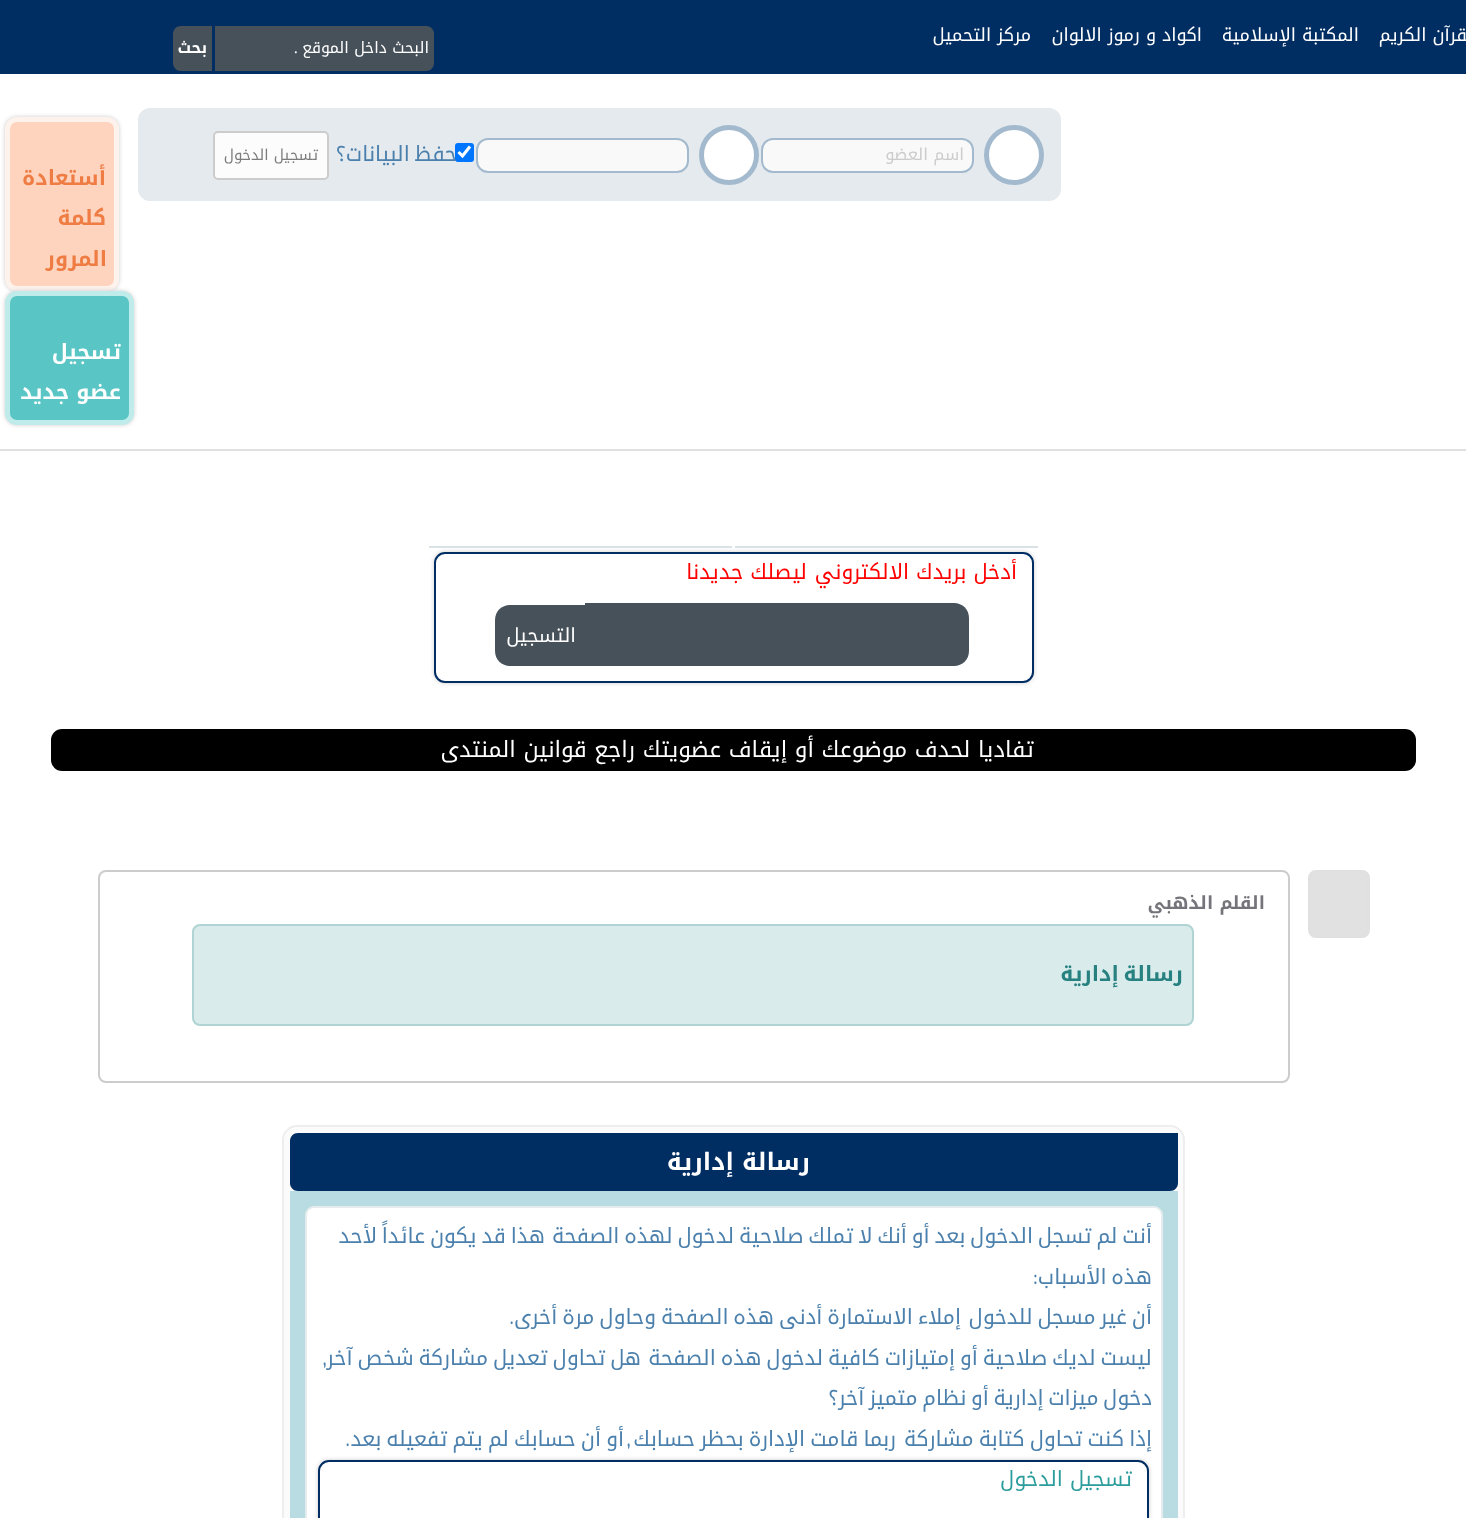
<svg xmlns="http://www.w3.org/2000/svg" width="1466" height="1518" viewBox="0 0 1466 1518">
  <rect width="100%" height="100%" fill="#fff"/>
  <path d="M0 0h1466v74H0z" fill="#002e63"/>
  <path d="M215 26H426C430.5 26 434 29.5 434 34V63C434 67.5 430.5 71 426 71H215Z" fill="#47515a"/>
  <path d="M181 26H212V71H181C176.5 71 173 67.5 173 63V34C173 29.5 176.5 26 181 26Z" fill="#47515a"/>
  <path d="M0 449h1466v2H0z" fill="#e0e0e0"/>
  <rect x="138" y="108" width="900" height="93" rx="12" fill="#e5eaee"/>
  <rect x="194" y="108" width="867" height="93" rx="12" fill="#e5eaee"/>
  <circle cx="1014" cy="155" r="27.5" fill="#fff" stroke="#a3bace" stroke-width="5"/>
  <rect x="762" y="139" width="211" height="33" rx="11" fill="#f9f9f9" stroke="#a3bace" stroke-width="2"/>
  <circle cx="729" cy="155" r="27.5" fill="#fff" stroke="#a3bace" stroke-width="5"/>
  <rect x="477" y="139" width="211" height="33" rx="11" fill="#f9f9f9" stroke="#a3bace" stroke-width="2"/>
  <rect x="455" y="143" width="19" height="19" rx="3" fill="#0075ff"/>
  <path d="M458.5 152L462.5 156L470 146.5" fill="none" stroke="#fff" stroke-width="3.1"/>
  <rect x="214" y="132" width="114" height="47" rx="4" fill="#fcfcfc" stroke="#ccc" stroke-width="2"/>
  <rect x="5" y="117" width="114" height="174" rx="12" fill="#ccc" filter="blur(2px)"/>
  <rect x="7.5" y="119.5" width="109" height="169" rx="9.5" fill="#fed4bf" stroke="#fef2ec" stroke-width="5"/>
  <rect x="5" y="291" width="129" height="134" rx="12" fill="#ccc" filter="blur(2px)"/>
  <rect x="7.5" y="293.5" width="124" height="129" rx="9.5" fill="#59c5c4" stroke="#bfebeb" stroke-width="5"/>
  <path d="M735 546h303v2H735z" fill="#dbe2e6"/>
  <path d="M429 546h303v2H429z" fill="#dbe2e6"/>
  <rect x="434" y="552" width="600" height="131" rx="11" fill="#ccc" filter="blur(2px)"/>
  <rect x="435" y="553" width="598" height="129" rx="10" fill="#fff" stroke="#002e63" stroke-width="2"/>
  <path d="M585 603H954C962.5 603 969 609.5 969 618V651C969 659.5 962.5 666 954 666H585Z" fill="#47515a"/>
  <path d="M510 605H588V666H510C501.5 666 495 659.5 495 651V620C495 611.5 501.5 605 510 605Z" fill="#47515a"/>
  <rect x="51" y="729" width="1365" height="42" rx="11" fill="#000"/>
  <rect x="1309.5" y="871.5" width="59" height="65" rx="6.5" fill="#e1e1e1" stroke="#e0e0e0" stroke-width="3"/>
  <rect x="99" y="871" width="1190" height="211" rx="7" fill="none" stroke="#ccc" stroke-width="2"/>
  <rect x="193" y="925" width="1000" height="100" rx="7" fill="#d9ebeb" stroke="#afd4d3" stroke-width="2"/>
  <rect x="283" y="1126" width="901" height="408" rx="14" fill="#fbfbfb" stroke="#eee" stroke-width="2"/>
  <path d="M298 1133H1178V1183C1178 1187.5 1174.5 1191 1170 1191H298C293.5 1191 290 1187.5 290 1183V1141C290 1136.5 293.5 1133 298 1133Z" fill="#002e63"/>
  <path d="M290 1191h888v327H290z" fill="#b9dbe2"/>
  <rect x="306" y="1207" width="856" height="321" rx="8" fill="#fff" stroke="#e6eced" stroke-width="2"/>
  <rect x="318" y="1460" width="831" height="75" rx="11" fill="#ccc" filter="blur(2px)"/>
  <rect x="319" y="1461" width="829" height="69" rx="10" fill="#fff" stroke="#002e63" stroke-width="2"/>
  <g font-family="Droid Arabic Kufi" font-size="18" direction="rtl" fill="#fff">
    <text x="1478" y="41">القرآن الكريم</text>
    <text x="1359" y="41">المكتبة الإسلامية</text>
    <text x="1202" y="41">اكواد و رموز الالوان</text>
    <text x="1031" y="41">مركز التحميل</text>
  </g>
  <text x="429" y="53" font-family="Droid Arabic Kufi" font-size="15.75" direction="rtl" fill="#fff">البحث داخل الموقع</text>
  <text x="298" y="53" font-family="Open Sans" font-size="15.75" direction="rtl" fill="#fff">.</text>
  <text x="207" y="53" font-family="Droid Arabic Kufi" font-size="15.75" font-weight="bold" direction="rtl" fill="#fff">بحث</text>
  <text x="964" y="160" font-family="Droid Arabic Kufi" font-size="16.5" direction="rtl" fill="#ccc">اسم العضو</text>
  <text x="457" y="161" word-spacing="-2.5" font-family="Droid Arabic Kufi" font-size="21" direction="rtl" fill="#4b80ad">حفظ البيانات؟</text>
  <text x="318" y="160" font-family="Droid Arabic Kufi" font-size="15" direction="rtl" fill="#7c7c7c">تسجيل الدخول</text>
  <g font-family="Droid Arabic Kufi" font-size="21" font-weight="bold" direction="rtl" fill="#ee7c43">
    <text x="106" y="185">أستعادة</text>
    <text x="106" y="225">كلمة</text>
    <text x="107" y="266">المرور</text>
  </g>
  <g font-family="Droid Arabic Kufi" font-size="21" font-weight="bold" direction="rtl" fill="#fff">
    <text x="121" y="359">تسجيل</text>
    <text x="121" y="399">عضو جديد</text>
  </g>
  <g font-family="Droid Arabic Kufi" font-size="21" direction="rtl" fill="#f00">
    <text x="1017" y="579">أدخل بريدك الالكتروني</text>
    <text x="807" y="579">ليصلك جديدنا</text>
  </g>
  <text x="576" y="642" font-family="Droid Arabic Kufi" font-size="19.5" direction="rtl" fill="#fff">التسجيل</text>
  <text x="1034" y="757" font-family="Droid Arabic Kufi" font-size="22.5" direction="rtl" fill="#fff">تفاديا لحدف موضوعك أو إيقاف عضويتك راجع قوانين المنتدى</text>
  <text x="1265" y="909" font-family="Droid Arabic Kufi" font-size="18" font-weight="bold" direction="rtl" fill="#74747a">القلم الذهبي</text>
  <text x="1183" y="981" word-spacing="-2.5" font-family="Droid Arabic Kufi" font-size="21" font-weight="bold" direction="rtl" fill="#268180">رسالة إدارية</text>
  <text x="810" y="1170" font-family="Droid Arabic Kufi" font-size="24" font-weight="bold" direction="rtl" fill="#fff">رسالة إدارية</text>
  <g font-family="Droid Arabic Kufi" font-size="21" direction="rtl" fill="#4b80ad">
    <text x="1152" y="1243" word-spacing="-2.25">أنت لم تسجل الدخول بعد أو أنك لا تملك صلاحية لدخول لهذه الصفحة</text>
    <text x="545" y="1243" word-spacing="-2.25">هذا قد يكون عائداً لأحد</text>
    <text x="1152" y="1284" word-spacing="-2.5">هذه الأسباب</text>
  </g>
  <text x="1038" y="1284" font-family="'Exo 2'" font-size="21" direction="rtl" fill="#4b80ad">:</text>
  <g font-family="Droid Arabic Kufi" font-size="21" direction="rtl" fill="#4b80ad">
    <text x="961" y="1324" word-spacing="-2.25">إملاء الاستمارة أدنى هذه الصفحة وحاول مرة أخرى</text>
    <text x="1152" y="1324" word-spacing="-2.25">أن غير مسجل للدخول</text>
  </g>
  <text x="514" y="1324" font-family="'Exo 2'" font-size="21" direction="rtl" fill="#4b80ad">.</text>
  <g font-family="Droid Arabic Kufi" font-size="21" direction="rtl" fill="#4b80ad">
    <text x="641" y="1365" word-spacing="-2.25">هل تحاول تعديل مشاركة شخص آخر</text>
    <text x="1152" y="1365" word-spacing="-2.25">ليست لديك صلاحية أو إمتيازات كافية لدخول هذه الصفحة</text>
  </g>
  <text x="327" y="1365" font-family="'Exo 2'" font-size="21" direction="rtl" fill="#4b80ad">,</text>
  <g font-family="Droid Arabic Kufi" font-size="21" direction="rtl" fill="#4b80ad">
    <text x="1152" y="1405" word-spacing="-2.5">دخول ميزات إدارية أو نظام متميز آخر؟</text>
    <text x="1152" y="1446" word-spacing="-2">إذا كنت تحاول كتابة مشاركة</text>
    <text x="896" y="1446" word-spacing="-2">ربما قامت الإدارة بحظر حسابك</text>
    <text x="624" y="1446" word-spacing="-2">أو أن حسابك لم يتم تفعيله بعد</text>
  </g>
  <g font-family="'Exo 2'" font-size="21" direction="rtl" fill="#4b80ad">
    <text x="350" y="1446">.</text>
    <text x="631" y="1446">,</text>
  </g>
  <text x="1132" y="1486" font-family="Droid Arabic Kufi" font-size="21" direction="rtl" fill="#2c9d9c">تسجيل الدخول</text>
</svg>
